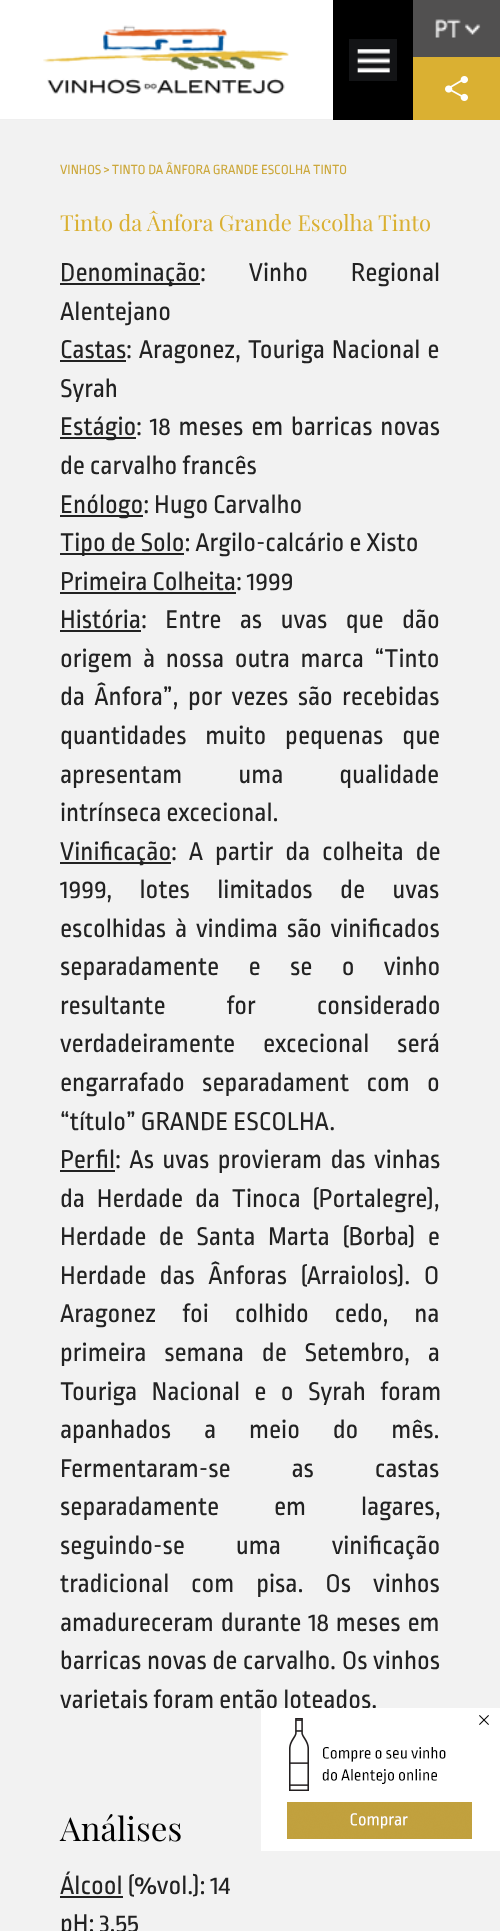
<svg xmlns="http://www.w3.org/2000/svg" width="500" height="1931" viewBox="0 0 500 1931">
  <rect width="100%" height="100%" fill="#fff"/>
  <path d="M0 119h333v1H0z" fill="#efefef"/>
  <image x="43" y="25" width="246" height="70" href="img/1.png"/>
  <path d="M333 0h80v120H333z" fill="#000"/>
  <image x="349" y="39" width="48" height="42" href="img/2.png"/>
  <path d="M413 0h87v57H413z" fill="#515050"/>
  <image x="435" y="19" width="46" height="19" href="img/3.png"/>
  <path d="M413 57h87v63H413z" fill="#dab032"/>
  <image x="445" y="76" width="23" height="25" href="img/4.png"/>
  <path d="M0 120h500v1811H0z" fill="#f2f2f2"/>
  <path d="M60 283h140v2H60z" fill="#222"/>
  <path d="M60 360h66v2H60z" fill="#222"/>
  <path d="M60 437h76v2H60z" fill="#222"/>
  <path d="M60 515h83v2H60z" fill="#222"/>
  <path d="M60 553h124v2H60z" fill="#222"/>
  <path d="M60 592h176v2H60z" fill="#222"/>
  <path d="M60 630h81v2H60z" fill="#222"/>
  <path d="M60 862h111v2H60z" fill="#222"/>
  <path d="M60 1170h55v2H60z" fill="#222"/>
  <path d="M60 1896h63v2H60z" fill="#222"/>
  <image x="476" y="1708" width="24" height="143" href="img/6.png"/>
  <text x="60" y="174" font-family="Ropa Sans" font-size="14" fill="#cca83c">VINHOS &gt; TINTO DA ÂNFORA GRANDE ESCOLHA TINTO</text>
  <text x="60" y="231" font-family="Playfair Display" font-size="22" fill="#dab032">Tinto da Ânfora Grande Escolha Tinto</text>
  <g font-family="Ropa Sans" font-size="27" fill="#222">
    <text x="60" y="281">Denominação</text>
    <text x="200" y="281" word-spacing="38">: Vinho Regional</text>
    <text x="60" y="320">Alentejano</text>
    <text x="60" y="358">Castas</text>
    <text x="126" y="358" word-spacing="2">: Aragonez, Touriga Nacional e</text>
    <text x="60" y="397">Syrah</text>
    <text x="60" y="435">Estágio</text>
    <text x="136" y="435" word-spacing="3">: 18 meses em barricas novas</text>
    <text x="60" y="474">de carvalho francês</text>
    <text x="60" y="513">Enólogo: Hugo Carvalho</text>
    <text x="60" y="551">Tipo de Solo: Argilo-calcário e Xisto</text>
    <text x="60" y="590">Primeira Colheita: 1999</text>
    <text x="60" y="628">História</text>
    <text x="141" y="628" word-spacing="13.5">: Entre as uvas que dão</text>
    <text x="60" y="667" word-spacing="5.75">origem à nossa outra marca “Tinto</text>
    <text x="60" y="705" word-spacing="4.5">da Ânfora”, por vezes são recebidas</text>
    <text x="60" y="744" word-spacing="14">quantidades muito pequenas que</text>
    <text x="60" y="783" word-spacing="51">apresentam uma qualidade</text>
    <text x="60" y="821">intrínseca excecional.</text>
    <text x="60" y="860">Vinificação</text>
    <text x="171" y="860" word-spacing="7">: A partir da colheita de</text>
    <text x="60" y="898" word-spacing="22.5">1999, lotes limitados de uvas</text>
    <text x="60" y="937" word-spacing="4">escolhidas à vindima são vinificados</text>
    <text x="60" y="975" word-spacing="24.5">separadamente e se o vinho</text>
    <text x="60" y="1014" word-spacing="56">resultante for considerado</text>
    <text x="60" y="1052" word-spacing="23">verdadeiramente excecional será</text>
    <text x="60" y="1091" word-spacing="12.5">engarrafado separadament com o</text>
    <text x="60" y="1130">“título” GRANDE ESCOLHA.</text>
    <text x="60" y="1168">Perfil</text>
    <text x="115" y="1168" word-spacing="3.5">: As uvas provieram das vinhas</text>
    <text x="60" y="1207" word-spacing="7">da Herdade da Tinoca (Portalegre),</text>
    <text x="60" y="1245" word-spacing="7.75">Herdade de Santa Marta (Borba) e</text>
    <text x="60" y="1284" word-spacing="8.5">Herdade das Ânforas (Arraiolos). O</text>
    <text x="60" y="1322" word-spacing="21">Aragonez foi colhido cedo, na</text>
    <text x="60" y="1361" word-spacing="13">primeira semana de Setembro, a</text>
    <text x="60" y="1400" word-spacing="9.5">Touriga Nacional e o Syrah foram</text>
    <text x="60" y="1438" word-spacing="28">apanhados a meio do mês.</text>
    <text x="60" y="1477" word-spacing="56">Fermentaram-se as castas</text>
    <text x="60" y="1515" word-spacing="50">separadamente em lagares,</text>
    <text x="60" y="1554" word-spacing="46">seguindo-se uma vinificação</text>
    <text x="60" y="1592" word-spacing="17">tradicional com pisa. Os vinhos</text>
    <text x="60" y="1631" word-spacing="2">amadureceram durante 18 meses em</text>
    <text x="60" y="1669" word-spacing="0.75">barricas novas de carvalho. Os vinhos</text>
    <text x="60" y="1708">varietais foram então loteados.</text>
  </g>
  <text x="60" y="1841" font-family="Playfair Display" font-size="33" fill="#000">Análises</text>
  <g font-family="Ropa Sans" font-size="27" fill="#222">
    <text x="60" y="1894">Álcool (%vol.): 14</text>
    <text x="60" y="1932">pH: 3,55</text>
  </g>
  <image x="261" y="1708" width="215" height="143" href="img/5.png"/>
</svg>
